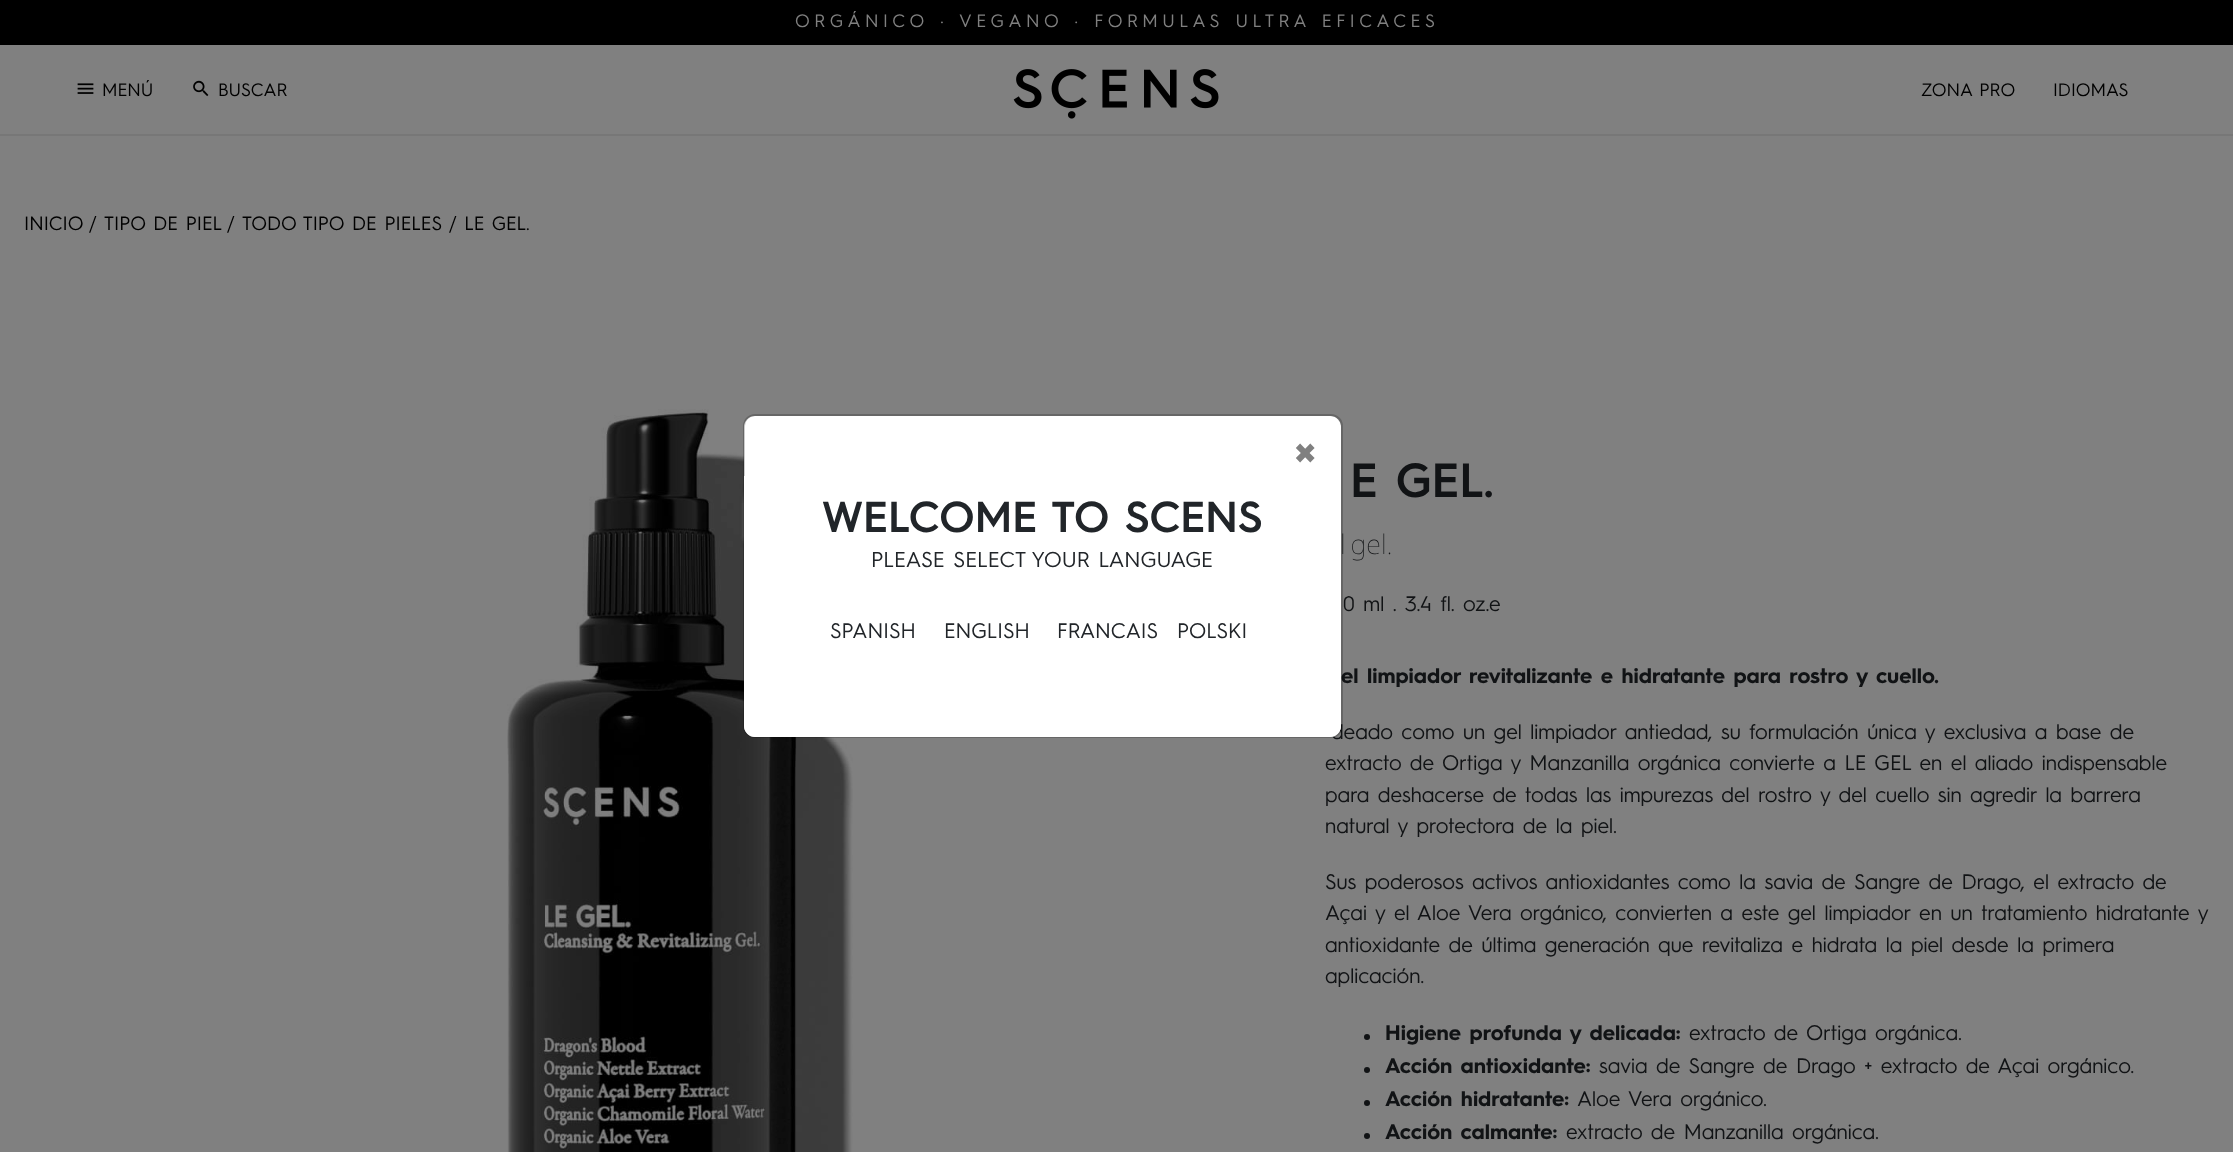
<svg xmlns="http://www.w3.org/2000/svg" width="2233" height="1152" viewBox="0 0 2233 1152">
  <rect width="100%" height="100%" fill="#808080"/>
  <path d="M0 0h2233v45H0z" fill="#000"/>
  <path d="M0 134h2233v2H0z" fill="#777"/>
  <image x="1013" y="69" width="206" height="50" href="img/1.png"/>
  <image x="77" y="83" width="17" height="11" href="img/2.png"/>
  <image x="193" y="80" width="16" height="17" href="img/3.png"/>
  <image x="507" y="409" width="346" height="743" href="img/4.png"/>
  <circle cx="1367" cy="1037" r="3" fill="#111315"/>
  <circle cx="1367" cy="1070" r="3" fill="#111315"/>
  <circle cx="1367" cy="1103" r="3" fill="#111315"/>
  <circle cx="1367" cy="1136" r="3" fill="#111315"/>
  <text x="795" y="27" font-family="'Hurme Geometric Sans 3'" font-size="18" letter-spacing="4.5" fill="#808080">ORGÁNICO · VEGANO · FORMULAS ULTRA EFICACES</text>
  <g font-family="'Hurme Geometric Sans 3'" font-size="18" fill="#000">
    <text x="102" y="96">MENÚ</text>
    <text x="218" y="96">BUSCAR</text>
    <text x="1921" y="96">ZONA PRO</text>
    <text x="2053" y="96">IDIOMAS</text>
  </g>
  <g font-family="'Hurme Geometric Sans 3'" font-size="19.25" fill="#000">
    <text x="24" y="230">INICIO</text>
    <text x="89" y="230">/</text>
    <text x="104" y="230">TIPO DE PIEL</text>
    <text x="227" y="230">/</text>
    <text x="242" y="230">TODO TIPO DE PIELES</text>
    <text x="449" y="230">/ LE GEL.</text>
  </g>
  <text x="1350" y="497" font-family="'Hurme Geometric Sans 3'" font-size="48" font-weight="600" fill="#111315">E GEL.</text>
  <text x="1340" y="554" word-spacing="-2" font-family="Noto Sans" font-size="27" font-weight="100" fill="#111315">l gel.</text>
  <text x="1343" y="611" font-family="'Hurme Geometric Sans 3'" font-size="21" fill="#111315">0 ml . 3.4 fl. oz.e</text>
  <text x="1341" y="683" font-family="'Hurme Geometric Sans 3'" font-size="21" font-weight="bold" fill="#111315">el limpiador revitalizante e hidratante para rostro y cuello.</text>
  <g font-family="'Hurme Geometric Sans 3'" font-size="21" fill="#111315">
    <text x="1331" y="739">deado como un gel limpiador antiedad, su formulación única y exclusiva a base de</text>
    <text x="1325" y="770">extracto de Ortiga y Manzanilla orgánica convierte a LE GEL en el aliado indispensable</text>
    <text x="1325" y="802">para deshacerse de todas las impurezas del rostro y del cuello sin agredir la barrera</text>
    <text x="1325" y="833">natural y protectora de la piel.</text>
    <text x="1325" y="889">Sus poderosos activos antioxidantes como la savia de Sangre de Drago, el extracto de</text>
    <text x="1325" y="920">Açai y el Aloe Vera orgánico, convierten a este gel limpiador en un tratamiento hidratante y</text>
    <text x="1325" y="952">antioxidante de última generación que revitaliza e hidrata la piel desde la primera</text>
    <text x="1325" y="983">aplicación.</text>
  </g>
  <text x="1385" y="1040" font-family="'Hurme Geometric Sans 3'" font-size="21" font-weight="bold" fill="#111315">Higiene profunda y delicada:</text>
  <text x="1689" y="1040" font-family="'Hurme Geometric Sans 3'" font-size="21" fill="#111315">extracto de Ortiga orgánica.</text>
  <text x="1385" y="1073" font-family="'Hurme Geometric Sans 3'" font-size="21" font-weight="bold" fill="#111315">Acción antioxidante:</text>
  <text x="1599" y="1073" font-family="'Hurme Geometric Sans 3'" font-size="21" fill="#111315">savia de Sangre de Drago + extracto de Açai orgánico.</text>
  <text x="1385" y="1106" font-family="'Hurme Geometric Sans 3'" font-size="21" font-weight="bold" fill="#111315">Acción hidratante:</text>
  <text x="1577" y="1106" font-family="'Hurme Geometric Sans 3'" font-size="21" fill="#111315">Aloe Vera orgánico.</text>
  <text x="1385" y="1139" font-family="'Hurme Geometric Sans 3'" font-size="21" font-weight="bold" fill="#111315">Acción calmante:</text>
  <text x="1566" y="1139" font-family="'Hurme Geometric Sans 3'" font-size="21" fill="#111315">extracto de Manzanilla orgánica.</text>
  <rect x="744" y="416" width="597" height="321" rx="11" fill="#fff"/>
  <rect x="744" y="415" width="598" height="322" rx="11" fill="none" stroke="#00000033" stroke-width="2"/>
  <text x="1294" y="469" font-family="'Hurme Geometric Sans 3'" font-size="48" font-weight="bold" fill="#808080">×</text>
  <path d="M744 476H1341V726C1341 732 1336 737 1330 737H755C749 737 744 732 744 726Z" fill="#fff"/>
  <text x="822" y="532" font-family="'Hurme Geometric Sans 3'" font-size="43.25" font-weight="600" fill="#212529">WELCOME TO SCENS</text>
  <text x="871" y="567" font-family="'Hurme Geometric Sans 3'" font-size="21.6" fill="#212529">PLEASE SELECT YOUR LANGUAGE</text>
  <g font-family="'Hurme Geometric Sans 3'" font-size="21" fill="#212529">
    <text x="830" y="638">SPANISH</text>
    <text x="944" y="638">ENGLISH</text>
    <text x="1057" y="638">FRANCAIS</text>
    <text x="1177" y="638">POLSKI</text>
  </g>
</svg>
